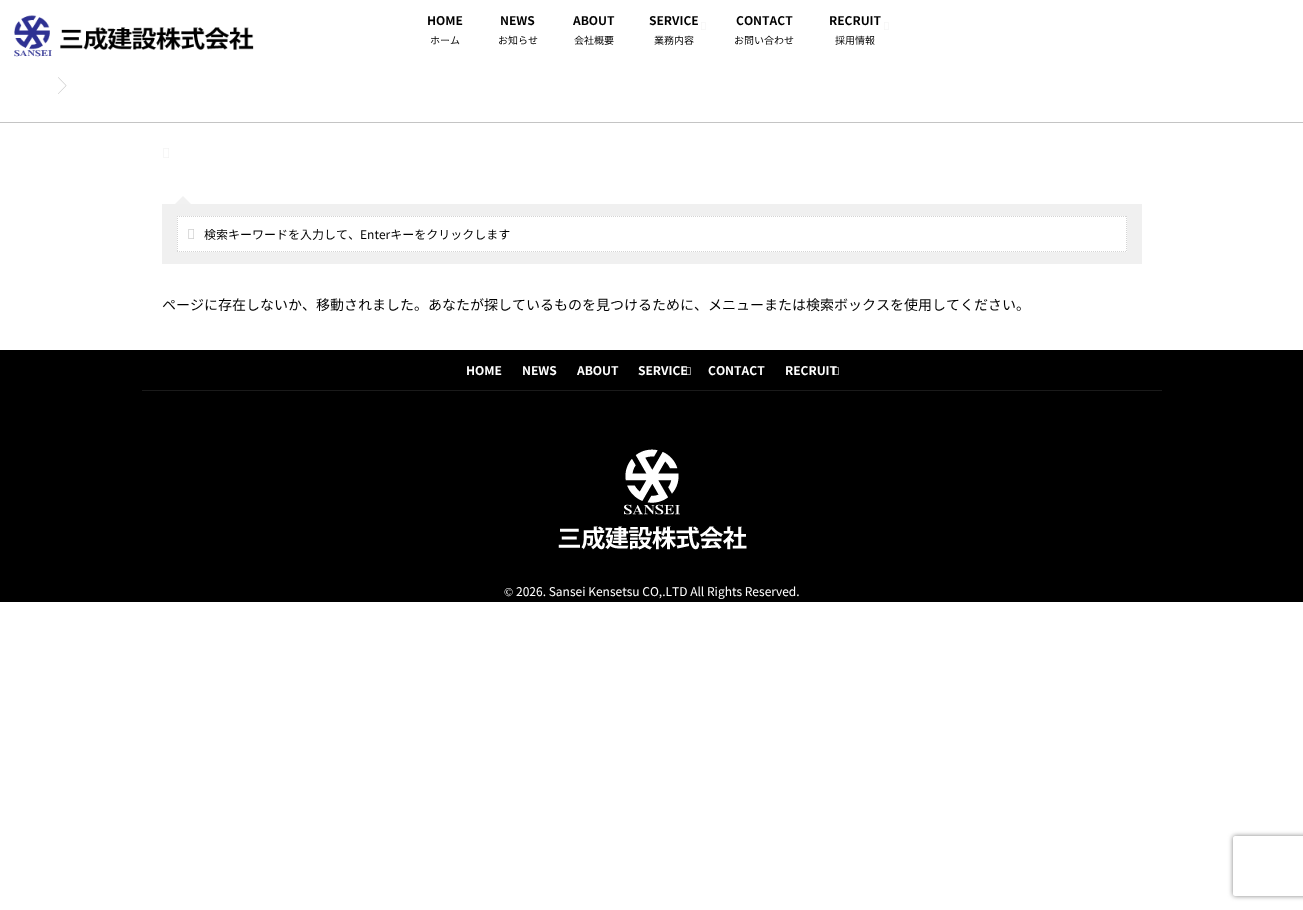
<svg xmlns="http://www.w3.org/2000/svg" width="1303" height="910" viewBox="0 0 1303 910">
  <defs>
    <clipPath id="clip1"><path d="M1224 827H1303V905H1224ZM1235 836H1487C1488 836 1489 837 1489 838V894C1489 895 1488 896 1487 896H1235C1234 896 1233 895 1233 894V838C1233 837 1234 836 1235 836Z" clip-rule="evenodd"/></clipPath>
  </defs>
  <rect width="100%" height="100%" fill="#fff"/>
  <image x="14" y="15" width="240" height="42" href="img/1.png"/>
  <image x="701" y="22" width="5" height="8" href="img/2.png"/>
  <image x="884" y="22" width="5" height="8" href="img/2.png"/>
  <path d="M0 122h1303v1H0z" fill="#c4c4c4"/>
  <image x="58" y="77" width="9" height="17" href="img/3.png"/>
  <image x="163" y="148" width="6" height="10" href="img/4.png"/>
  <path d="M162 204h980v60H162z" fill="#f0f0f0"/>
  <path d="M191 204H175L183 196Z" fill="#f1f1f1"/>
  <path d="M177 216h950v36H177z" fill="#fff"/>
  <image x="188" y="229" width="6" height="10" href="img/5.png"/>
  <path d="M177 216.5H1127" fill="none" stroke="#d4d4d4" stroke-dasharray="1 1"/>
  <path d="M1126.5 216V252" fill="none" stroke="#d4d4d4" stroke-dasharray="1 1"/>
  <path d="M177 251.5H1127" fill="none" stroke="#d4d4d4" stroke-dasharray="1 1"/>
  <path d="M177.5 216V252" fill="none" stroke="#d4d4d4" stroke-dasharray="1 1"/>
  <path d="M0 350h1303v252H0z" fill="#000"/>
  <path d="M142 390h1020v1H142z" fill="#1a1a1a"/>
  <image x="558" y="449" width="189" height="101" href="img/8.png"/>
  <g clip-path="url(#clip1)">
    <rect x="1233" y="836" width="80" height="60" rx="2" fill="#808080" filter="blur(2.5px)"/>
  </g>
  <text x="427" y="25" font-family="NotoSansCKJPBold" font-size="12" font-weight="bold" fill="#000">HOME</text>
  <text x="430" y="44" font-family="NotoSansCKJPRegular" font-size="10" fill="#000">ホーム</text>
  <text x="500" y="25" font-family="NotoSansCKJPBold" font-size="12" font-weight="bold" fill="#000">NEWS</text>
  <text x="498" y="44" font-family="NotoSansCKJPRegular" font-size="10" fill="#000">お知らせ</text>
  <text x="573" y="25" font-family="NotoSansCKJPBold" font-size="12" font-weight="bold" fill="#000">ABOUT</text>
  <text x="574" y="44" font-family="NotoSansCKJPRegular" font-size="10" fill="#000">会社概要</text>
  <text x="649" y="25" font-family="NotoSansCKJPBold" font-size="12" font-weight="bold" fill="#000">SERVICE</text>
  <text x="654" y="44" font-family="NotoSansCKJPRegular" font-size="10" fill="#000">業務内容</text>
  <text x="736" y="25" font-family="NotoSansCKJPBold" font-size="12" font-weight="bold" fill="#000">CONTACT</text>
  <text x="734" y="44" font-family="NotoSansCKJPRegular" font-size="10" fill="#000">お問い合わせ</text>
  <text x="829" y="25" font-family="NotoSansCKJPBold" font-size="12" font-weight="bold" fill="#000">RECRUIT</text>
  <text x="835" y="44" font-family="NotoSansCKJPRegular" font-size="10" fill="#000">採用情報</text>
  <text x="204" y="239" font-family="NotoSansCKJPRegular" font-size="12" fill="#000">検索キーワードを入力して、Enterキーをクリックします</text>
  <text x="162" y="310" font-family="NotoSansCKJPRegular" font-size="14" fill="#000">ページに存在しないか、移動されました。あなたが探しているものを見つけるために、メニューまたは検索ボックスを使用してください。</text>
  <g font-family="NotoSansCKJPBold" font-size="12" font-weight="bold" fill="#fff">
    <text x="466" y="375">HOME</text>
    <text x="522" y="375">NEWS</text>
    <text x="577" y="375">ABOUT</text>
    <text x="638" y="375">SERVICE</text>
  </g>
  <image x="686" y="367" width="5" height="8" href="img/6.png"/>
  <g font-family="NotoSansCKJPBold" font-size="12" font-weight="bold" fill="#fff">
    <text x="708" y="375">CONTACT</text>
    <text x="785" y="375">RECRUIT</text>
  </g>
  <image x="834" y="367" width="5" height="8" href="img/7.png"/>
  <text x="504" y="596" font-family="Liberation Serif" font-size="12" fill="#fff">©</text>
  <text x="516" y="596" font-family="NotoSansCKJPRegular" font-size="12" fill="#fff">2026. Sansei Kensetsu CO,.LTD All Rights Reserved.</text>
</svg>
